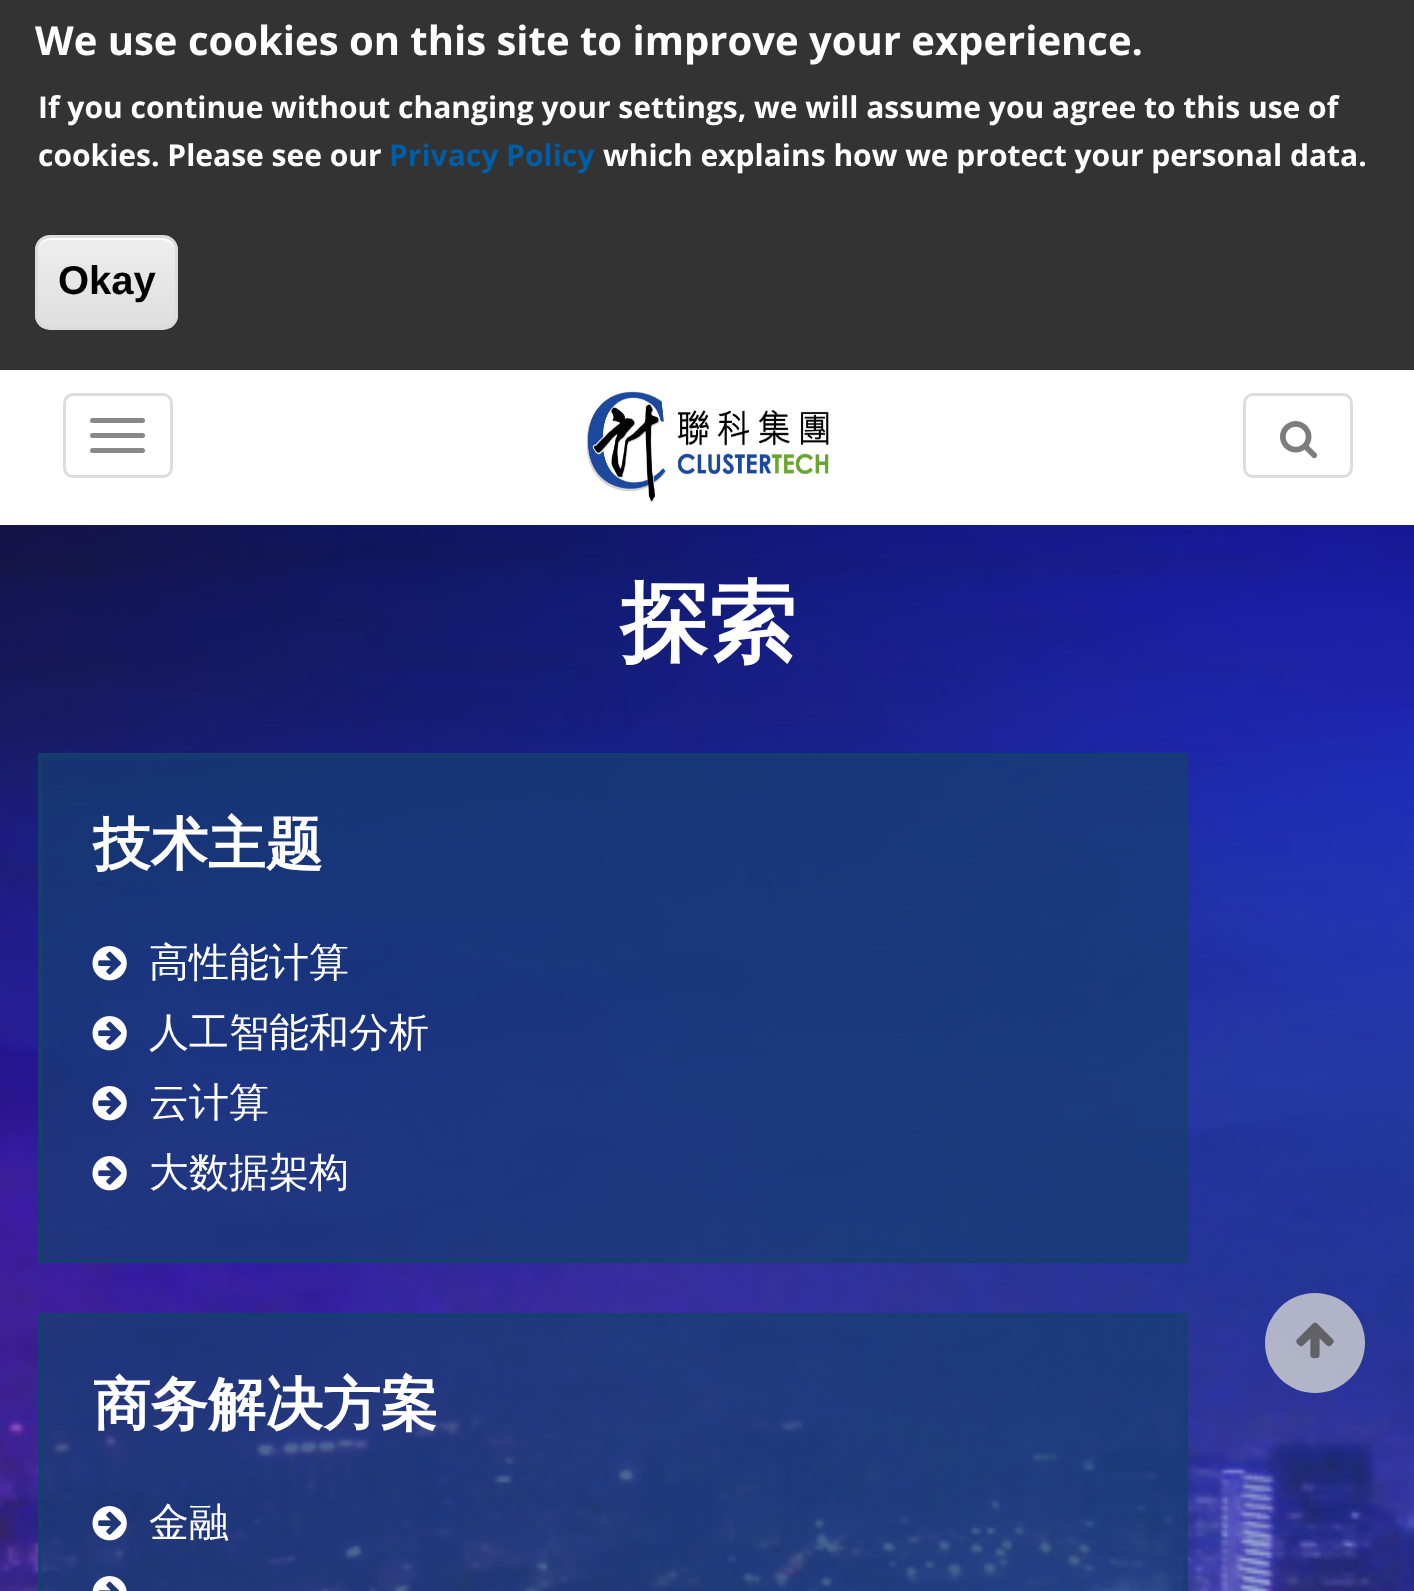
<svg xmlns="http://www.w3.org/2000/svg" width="1414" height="1591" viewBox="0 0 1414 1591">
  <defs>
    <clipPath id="clip1"><rect x="35" y="235" width="143" height="95" rx="15"/></clipPath>
    <linearGradient id="g1" gradientUnits="userSpaceOnUse" x1="106" y1="238" x2="106" y2="328"><stop offset="0.05" stop-color="#ededed"/><stop offset="1" stop-color="#dfdfdf"/></linearGradient>
  </defs>
  <rect width="100%" height="100%" fill="#fff"/>
  <path d="M0 0h1414v370H0z" fill="#333"/>
  <g clip-path="url(#clip1)">
    <path d="M35 238h143v90H35z" fill="url(#g1)"/>
  </g>
  <path d="M50 240H162C169 240 175 246 175 252C175 234 155 238 144 238H70C58 238 38 234 38 252C38 246 43 240 50 240Z" fill="#fff"/>
  <rect x="36.5" y="236.5" width="140" height="92" rx="13.5" fill="none" stroke="#dcdcdc" stroke-width="3"/>
  <rect x="64.5" y="394.5" width="107" height="82" rx="8.5" fill="none" stroke="#ddd" stroke-width="3"/>
  <rect x="90" y="418" width="55" height="5" rx="2.5" fill="#888"/>
  <rect x="90" y="433" width="55" height="5" rx="2.5" fill="#888"/>
  <rect x="90" y="448" width="55" height="5" rx="2.5" fill="#888"/>
  <image x="586" y="391" width="243" height="111" href="img/1.png"/>
  <rect x="1244.5" y="394.5" width="107" height="82" rx="8.5" fill="none" stroke="#ddd" stroke-width="3"/>
  <image x="1280" y="421" width="38" height="38" href="img/2.png"/>
  <image x="0" y="525" width="1414" height="1066" href="img/3.png"/>
  <path d="M38 753h1150v510H38z" fill="#173f71b3"/>
  <path d="M40.5 755.5h1145v505H40.5z" fill="none" stroke="#173f71b3" stroke-width="5"/>
  <image x="92" y="946" width="35" height="35" href="img/4.png"/>
  <image x="92" y="1016" width="35" height="35" href="img/5.png"/>
  <image x="92" y="1086" width="35" height="35" href="img/6.png"/>
  <image x="92" y="1156" width="35" height="35" href="img/7.png"/>
  <path d="M38 1313h1150v278H38z" fill="#173f71b3"/>
  <path d="M40.5 1315.5h1145v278H40.5z" fill="none" stroke="#173f71b3" stroke-width="5"/>
  <image x="92" y="1506" width="35" height="35" href="img/8.png"/>
  <image x="92" y="1576" width="35" height="15" href="img/9.png"/>
  <circle cx="1315" cy="1343" r="50" fill="#d4d4d4cc"/>
  <image x="1296" y="1322" width="38" height="37" href="img/10.png"/>
  <text x="35" y="55" font-family="Open Sans" font-size="40" font-weight="bold" fill="#fff">We use cookies on this site to improve your experience.</text>
  <g font-family="Open Sans" font-size="30" font-weight="bold" fill="#fff">
    <text x="38" y="118">If you continue without changing your settings, we will assume you agree to this use of</text>
    <text x="38" y="166">cookies. Please see our</text>
  </g>
  <text x="389" y="166" font-family="Open Sans" font-size="30" font-weight="bold" fill="#005ea6">Privacy Policy</text>
  <text x="603" y="166" font-family="Open Sans" font-size="30" font-weight="bold" fill="#fff">which explains how we protect your personal data.</text>
  <text x="58" y="294" font-family="Liberation Sans" font-size="40" font-weight="bold" fill="#000">Okay</text>
  <text x="620" y="653" font-family="WenQuanYi Zen Hei" font-size="88" font-weight="bold" fill="#fff">探索</text>
  <text x="93" y="864" font-family="WenQuanYi Zen Hei" font-size="57.5" font-weight="bold" fill="#fff">技术主题</text>
  <g font-family="WenQuanYi Zen Hei" font-size="40" font-weight="500" fill="#fff">
    <text x="149" y="976">高性能计算</text>
    <text x="149" y="1046">人工智能和分析</text>
    <text x="149" y="1116">云计算</text>
    <text x="149" y="1186">大数据架构</text>
  </g>
  <text x="93" y="1424" font-family="WenQuanYi Zen Hei" font-size="57.5" font-weight="bold" fill="#fff">商务解决方案</text>
  <text x="149" y="1536" font-family="WenQuanYi Zen Hei" font-size="40" font-weight="500" fill="#fff">金融</text>
</svg>
